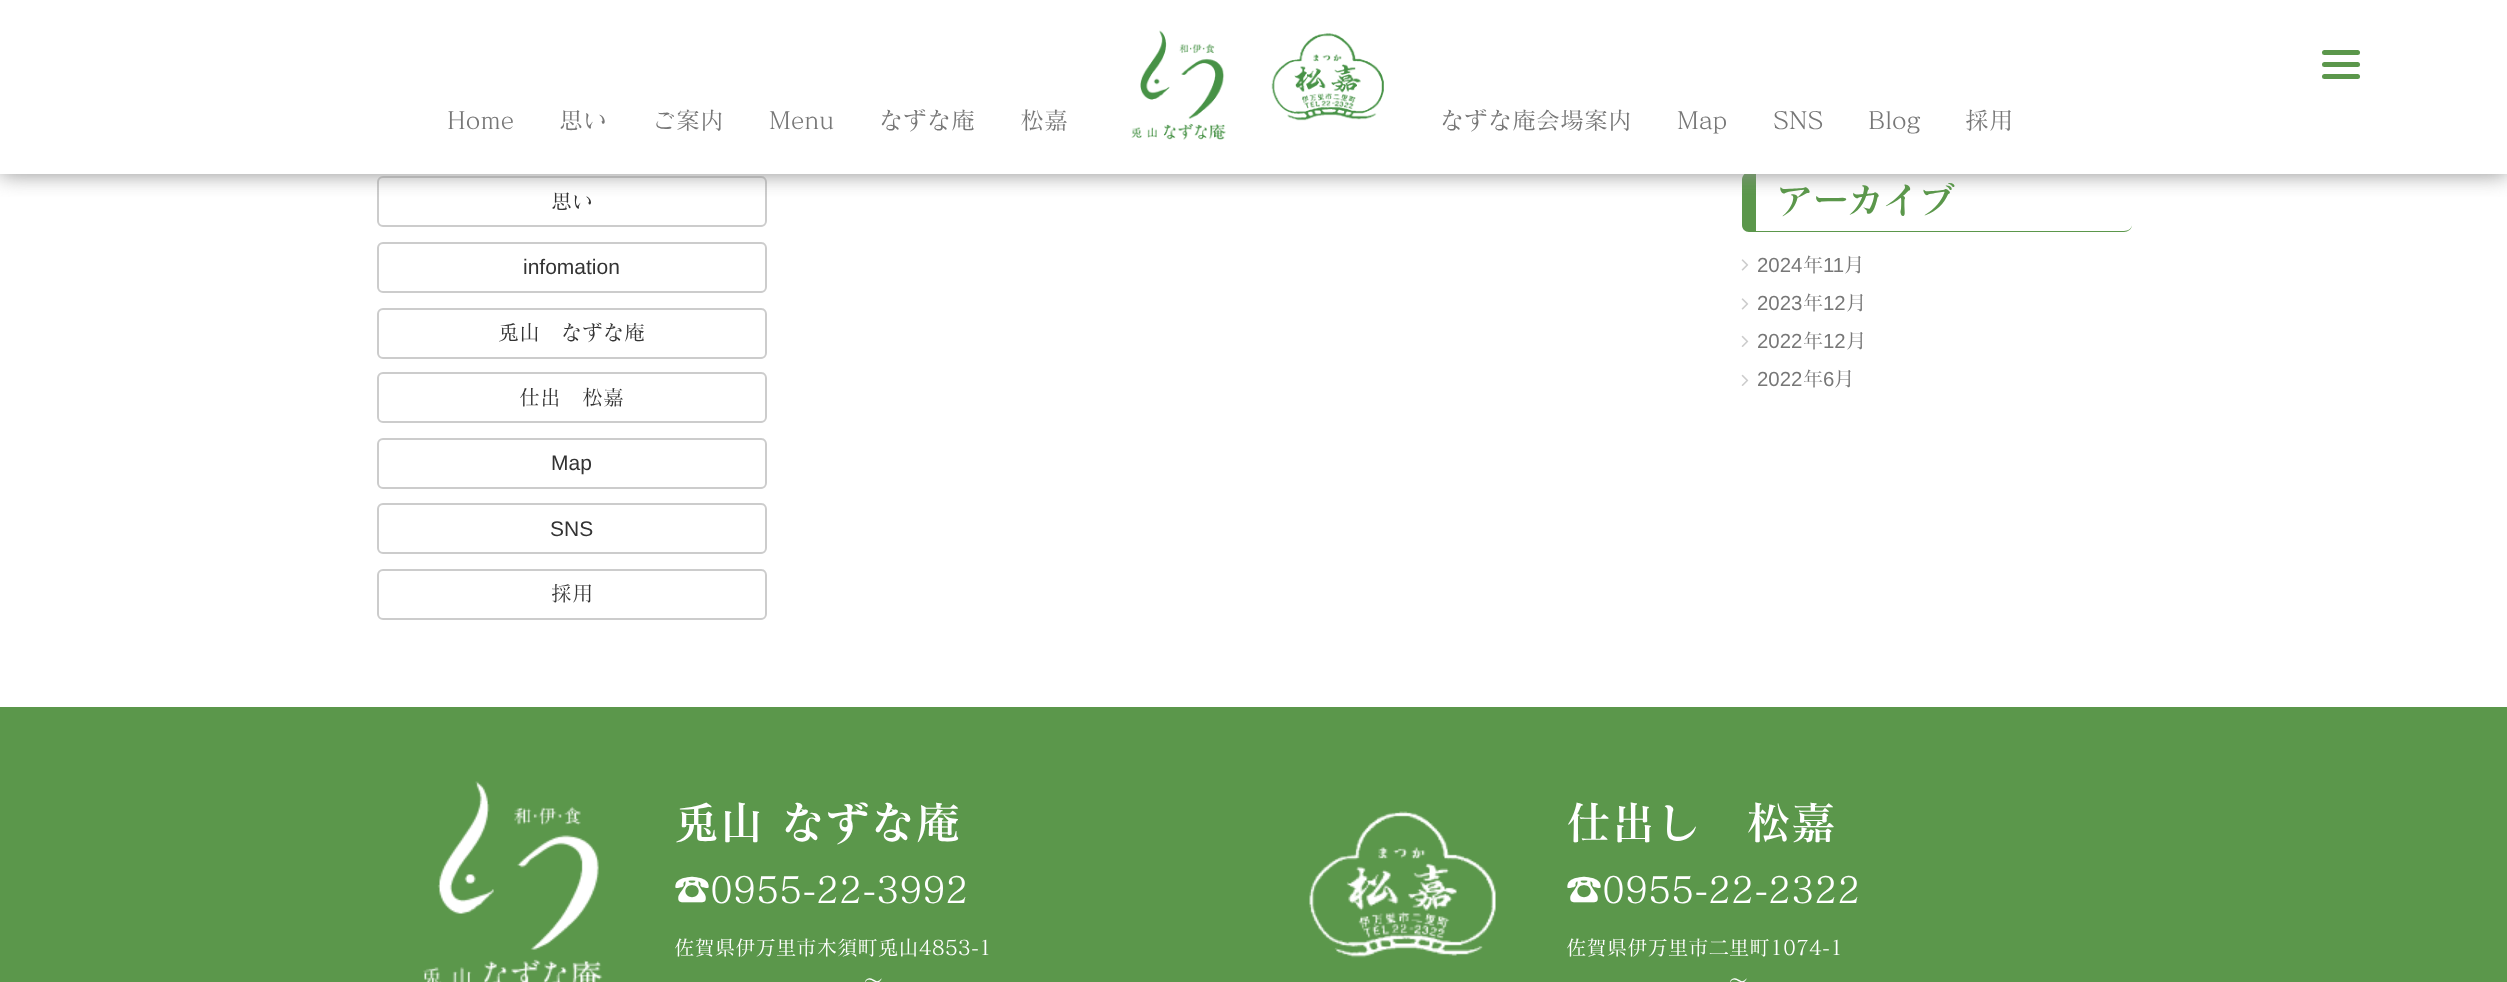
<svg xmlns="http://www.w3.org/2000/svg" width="2507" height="982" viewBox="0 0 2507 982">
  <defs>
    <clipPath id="clip1"><path d="M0 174h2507v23H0z"/></clipPath>
  </defs>
  <rect width="100%" height="100%" fill="#fff"/>
  <path d="M1749 172H2124C2128 172 2132 176 2132 180V225C2132 229 2128 232 2124 232H1749C1745 232 1742 229 1742 225V180C1742 176 1745 172 1749 172ZM1756 172H2124C2128 172 2132 176 2132 180V225C2132 228 2128 231 2124 231H1756Z" fill="#5b974b" fill-rule="evenodd"/>
  <path d="M1744 172h12v2H1744z" fill="#fff"/>
  <rect x="378" y="177" width="388" height="49" rx="5" fill="none" stroke="#ccc" stroke-width="2"/>
  <g clip-path="url(#clip1)">
    <path d="M0 0h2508v174H0z" fill="#8e8e8e" filter="blur(11px)"/>
  </g>
  <rect x="2322" y="62" width="38" height="5" rx="2.5" fill="#5b974b"/>
  <rect x="2322" y="50" width="38" height="5" rx="2.5" fill="#5b974b"/>
  <rect x="2322" y="74" width="38" height="5" rx="2.5" fill="#5b974b"/>
  <image x="1131" y="30" width="95" height="110" href="img/1.png"/>
  <image x="1271" y="33" width="113" height="88" href="img/2.png"/>
  <rect x="378" y="243" width="388" height="49" rx="5" fill="none" stroke="#ccc" stroke-width="2"/>
  <rect x="378" y="309" width="388" height="49" rx="5" fill="none" stroke="#ccc" stroke-width="2"/>
  <rect x="378" y="373" width="388" height="49" rx="5" fill="none" stroke="#ccc" stroke-width="2"/>
  <rect x="378" y="439" width="388" height="49" rx="5" fill="none" stroke="#ccc" stroke-width="2"/>
  <rect x="378" y="504" width="388" height="49" rx="5" fill="none" stroke="#ccc" stroke-width="2"/>
  <rect x="378" y="570" width="388" height="49" rx="5" fill="none" stroke="#ccc" stroke-width="2"/>
  <image x="1741" y="259" width="8" height="12" href="img/3.png"/>
  <image x="1741" y="298" width="8" height="12" href="img/3.png"/>
  <image x="1741" y="335" width="8" height="12" href="img/4.png"/>
  <image x="1741" y="374" width="8" height="12" href="img/4.png"/>
  <path d="M0 707h2507v275H0z" fill="#5b974b"/>
  <image x="423" y="781" width="180" height="201" href="img/5.png"/>
  <image x="1309" y="811" width="187" height="147" href="img/6.png"/>
  <g font-family="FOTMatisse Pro" font-size="24" font-weight="500" fill="#777">
    <text x="447" y="129">Home</text>
    <text x="559" y="129">思い</text>
    <text x="652" y="129">ご案内</text>
    <text x="769" y="129">Menu</text>
    <text x="879" y="129">なずな庵</text>
    <text x="1020" y="129">松嘉</text>
    <text x="1440" y="129">なずな庵会場案内</text>
    <text x="1677" y="129">Map</text>
    <text x="1773" y="129">SNS</text>
    <text x="1868" y="129">Blog</text>
    <text x="1965" y="129">採用</text>
  </g>
  <text x="551" y="209" font-family="FOTMatisse Pro" font-size="21" font-weight="500" fill="#333">思い</text>
  <text x="523" y="274" font-family="Liberation Sans" font-size="21" fill="#333">infomation</text>
  <g font-family="FOTMatisse Pro" font-size="21" font-weight="500" fill="#333">
    <text x="498" y="340">兎山　なずな庵</text>
    <text x="519" y="405">仕出　松嘉</text>
  </g>
  <g font-family="Liberation Sans" font-size="21" fill="#333">
    <text x="551" y="470">Map</text>
    <text x="550" y="536">SNS</text>
  </g>
  <text x="551" y="601" font-family="FOTMatisse Pro" font-size="21" font-weight="500" fill="#333">採用</text>
  <text x="1777" y="213" font-family="FOTMatisse Pro" font-size="36" font-weight="600" fill="#5b974b">アーカイブ</text>
  <text x="1757" y="272" font-family="Liberation Sans" font-size="20.4" fill="#777">2024</text>
  <text x="1803" y="272" font-family="FOTMatisse Pro" font-size="20.4" font-weight="500" fill="#777">年</text>
  <text x="1823" y="272" font-family="Liberation Sans" font-size="20.4" fill="#777">11</text>
  <text x="1844" y="272" font-family="FOTMatisse Pro" font-size="20.4" font-weight="500" fill="#777">月</text>
  <text x="1757" y="310" font-family="Liberation Sans" font-size="20.4" fill="#777">2023</text>
  <text x="1803" y="310" font-family="FOTMatisse Pro" font-size="20.4" font-weight="500" fill="#777">年</text>
  <text x="1823" y="310" font-family="Liberation Sans" font-size="20.4" fill="#777">12</text>
  <text x="1846" y="310" font-family="FOTMatisse Pro" font-size="20.4" font-weight="500" fill="#777">月</text>
  <text x="1757" y="348" font-family="Liberation Sans" font-size="20.4" fill="#777">2022</text>
  <text x="1803" y="348" font-family="FOTMatisse Pro" font-size="20.4" font-weight="500" fill="#777">年</text>
  <text x="1823" y="348" font-family="Liberation Sans" font-size="20.4" fill="#777">12</text>
  <text x="1846" y="348" font-family="FOTMatisse Pro" font-size="20.4" font-weight="500" fill="#777">月</text>
  <text x="1757" y="386" font-family="Liberation Sans" font-size="20.4" fill="#777">2022</text>
  <text x="1803" y="386" font-family="FOTMatisse Pro" font-size="20.4" font-weight="500" fill="#777">年</text>
  <text x="1823" y="386" font-family="Liberation Sans" font-size="20.4" fill="#777">6</text>
  <text x="1834" y="386" font-family="FOTMatisse Pro" font-size="20.4" font-weight="500" fill="#777">月</text>
  <text x="674" y="839" font-family="FOTMatisse Pro" font-size="45" font-weight="600" fill="#fff">兎山 なずな庵</text>
  <text x="674" y="903" font-family="FOTMatisse Pro" font-size="36" font-weight="500" fill="#fff">☎︎0955-22-3992</text>
  <g font-family="FOTMatisse Pro" font-size="20.4" font-weight="500" fill="#fff">
    <text x="674" y="955">佐賀県伊万里市木須町兎山4853-1</text>
    <text x="863" y="988">〜</text>
  </g>
  <text x="1566" y="839" font-family="FOTMatisse Pro" font-size="45" font-weight="600" fill="#fff">仕出し　松嘉</text>
  <text x="1566" y="903" font-family="FOTMatisse Pro" font-size="36" font-weight="500" fill="#fff">☎︎0955-22-2322</text>
  <g font-family="FOTMatisse Pro" font-size="20.4" font-weight="500" fill="#fff">
    <text x="1566" y="955">佐賀県伊万里市二里町1074-1</text>
    <text x="1728" y="988">〜</text>
  </g>
</svg>
